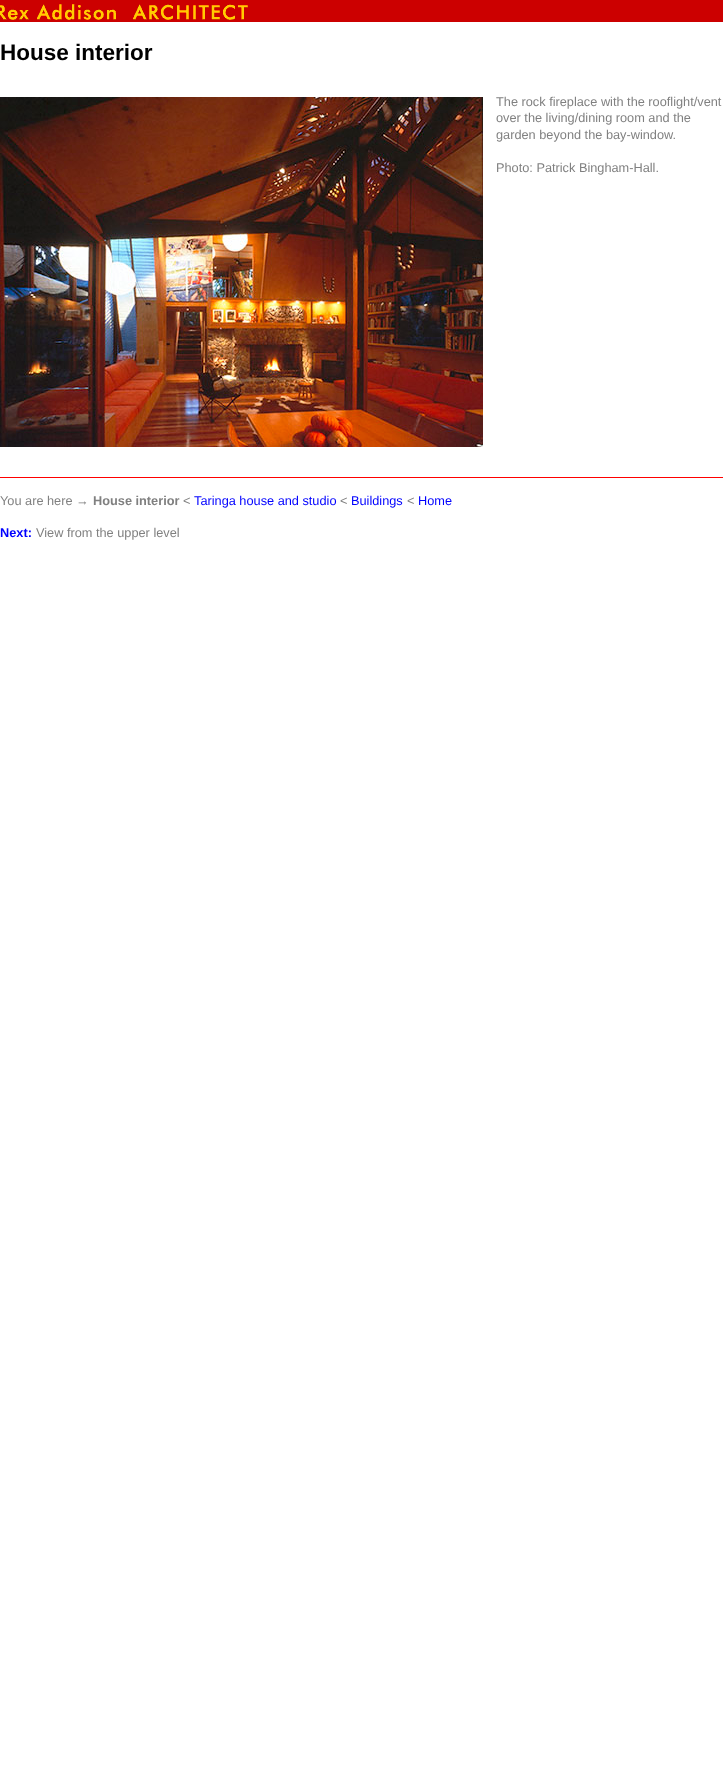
<svg xmlns="http://www.w3.org/2000/svg" width="723" height="1790" viewBox="0 0 723 1790">
  <rect width="100%" height="100%" fill="#fff"/>
  <image x="0" y="0" width="723" height="22" href="img/1.png"/>
  <image x="0" y="97" width="483" height="350" href="img/2.png"/>
  <path d="M0 477h723v1H0z" fill="#f00"/>
  <text x="0" y="60" font-family="Liberation Sans" font-size="22.5" font-weight="bold" fill="#000">House interior</text>
  <g font-family="Liberation Sans" font-size="12.75" fill="#808080">
    <text x="496" y="106">The rock fireplace with the rooflight/vent</text>
    <text x="496" y="122">over the living/dining room and the</text>
    <text x="496" y="139">garden beyond the bay-window.</text>
    <text x="496" y="172">Photo: Patrick Bingham-Hall.</text>
    <text x="0" y="505">You are here →</text>
  </g>
  <text x="93" y="505" font-family="Liberation Sans" font-size="12.75" font-weight="bold" fill="#808080">House interior</text>
  <text x="183" y="505" font-family="Liberation Sans" font-size="12.75" fill="#808080">&lt;</text>
  <text x="194" y="505" font-family="Liberation Sans" font-size="12.75" fill="#00f">Taringa house and studio</text>
  <text x="340" y="505" font-family="Liberation Sans" font-size="12.75" fill="#808080">&lt;</text>
  <text x="351" y="505" font-family="Liberation Sans" font-size="12.75" fill="#00f">Buildings</text>
  <text x="407" y="505" font-family="Liberation Sans" font-size="12.75" fill="#808080">&lt;</text>
  <text x="418" y="505" font-family="Liberation Sans" font-size="12.75" fill="#00f">Home</text>
  <text x="0" y="537" font-family="Liberation Sans" font-size="12.75" font-weight="bold" fill="#00f">Next:</text>
  <text x="36" y="537" font-family="Liberation Sans" font-size="12.75" fill="#808080">View from the upper level</text>
</svg>
